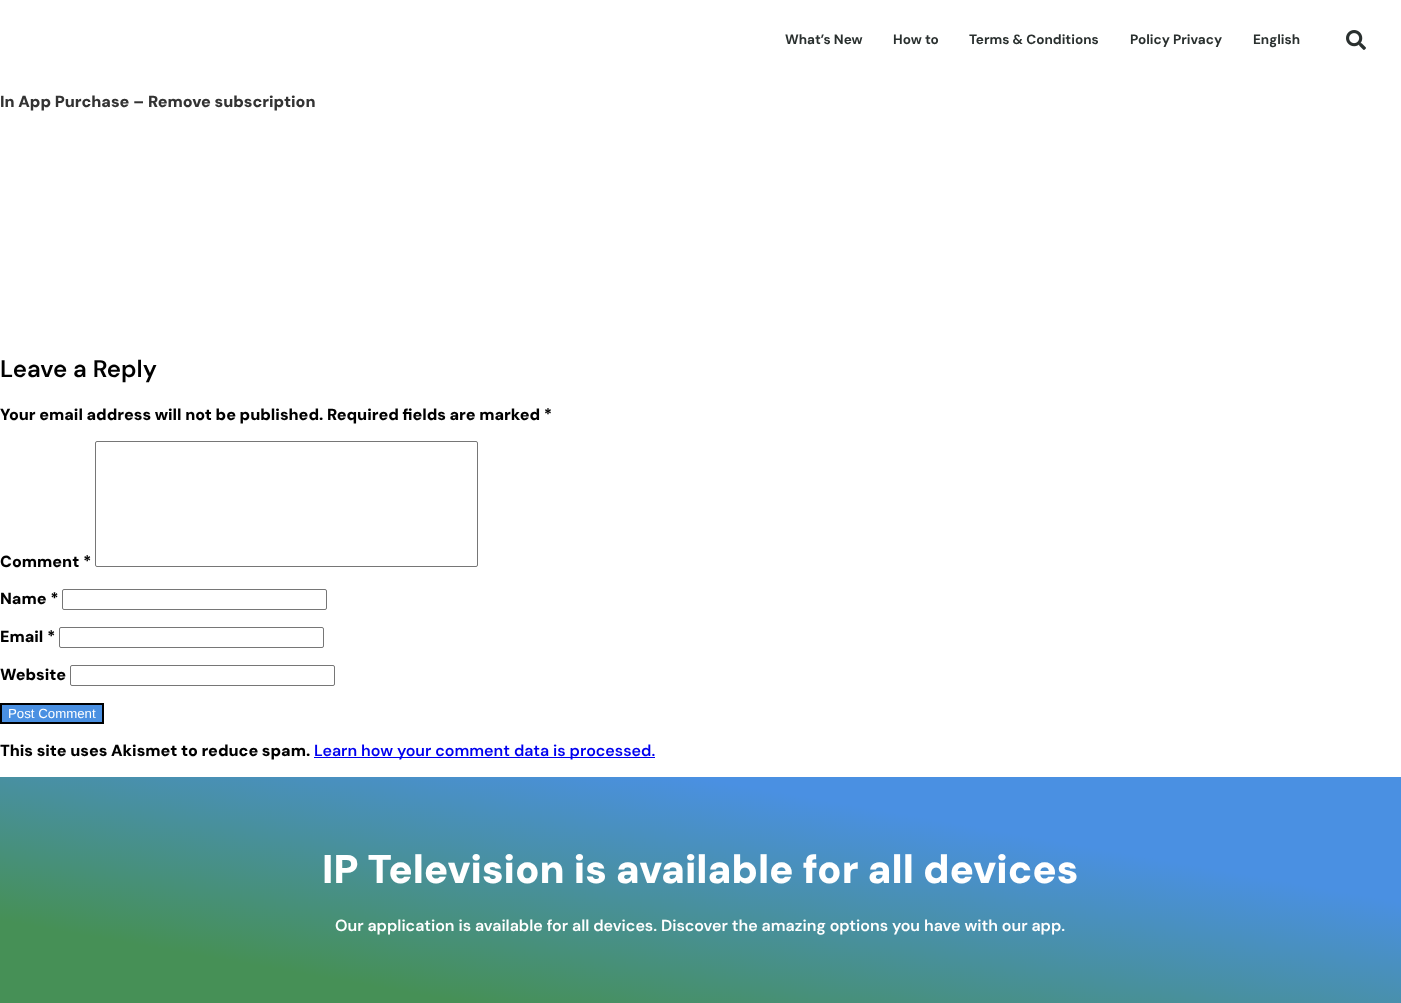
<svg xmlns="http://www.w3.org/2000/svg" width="1401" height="1003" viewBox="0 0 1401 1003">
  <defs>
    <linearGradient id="g1" gradientUnits="userSpaceOnUse" x1="749" y1="662" x2="652" y2="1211"><stop offset="0.22" stop-color="#4a90e2"/><stop offset="0.69" stop-color="#469056"/></linearGradient>
  </defs>
  <rect width="100%" height="100%" fill="#fff"/>
  <image x="1346" y="30" width="20" height="20" href="img/1.png"/>
  <rect x="95.5" y="441.5" width="382" height="125" rx="1.5" fill="none" stroke="#767676"/>
  <rect x="62.5" y="589.5" width="264" height="20" rx="1.5" fill="none" stroke="#767676"/>
  <rect x="59.5" y="627.5" width="264" height="20" rx="1.5" fill="none" stroke="#767676"/>
  <rect x="70.5" y="665.5" width="264" height="20" rx="1.5" fill="none" stroke="#767676"/>
  <path d="M1 704h102v19H1z" fill="#4a90e2" stroke="#000" stroke-width="2"/>
  <path d="M314 757h341v1H314z" fill="#00e"/>
  <path d="M0 777h1401v226H0z" fill="url(#g1)"/>
  <g font-family="DM Sans" font-size="13.5" font-weight="bold" fill="#2a302f">
    <text x="785" y="44">What’s New</text>
    <text x="893" y="44">How to</text>
    <text x="969" y="44">Terms &amp; Conditions</text>
    <text x="1130" y="44">Policy Privacy</text>
    <text x="1253" y="44">English</text>
  </g>
  <text x="0" y="107" font-family="DM Sans" font-size="16" font-weight="900" fill="#333">In App Purchase – Remove subscription</text>
  <text x="0" y="377" font-family="DM Sans" font-size="24" font-weight="600" fill="#000">Leave a Reply</text>
  <g font-family="DM Sans" font-size="16" font-weight="900" fill="#000">
    <text x="0" y="420">Your email address will not be published. Required fields are marked *</text>
    <text x="0" y="567">Comment *</text>
    <text x="0" y="604">Name *</text>
    <text x="0" y="642">Email *</text>
    <text x="0" y="680">Website</text>
  </g>
  <text x="8" y="718" font-family="Liberation Sans" font-size="13.25" fill="#fff">Post Comment</text>
  <text x="0" y="756" font-family="DM Sans" font-size="16" font-weight="900" fill="#000">This site uses Akismet to reduce spam.</text>
  <text x="314" y="756" font-family="DM Sans" font-size="16" font-weight="600" fill="#00e">Learn how your comment data is processed.</text>
  <text x="322" y="883" font-family="DM Sans" font-size="40" font-weight="900" fill="#fff">IP Television is available for all devices</text>
  <text x="335" y="931" font-family="DM Sans" font-size="16" font-weight="600" fill="#fff">Our application is available for all devices. Discover the amazing options you have with our app.</text>
</svg>
